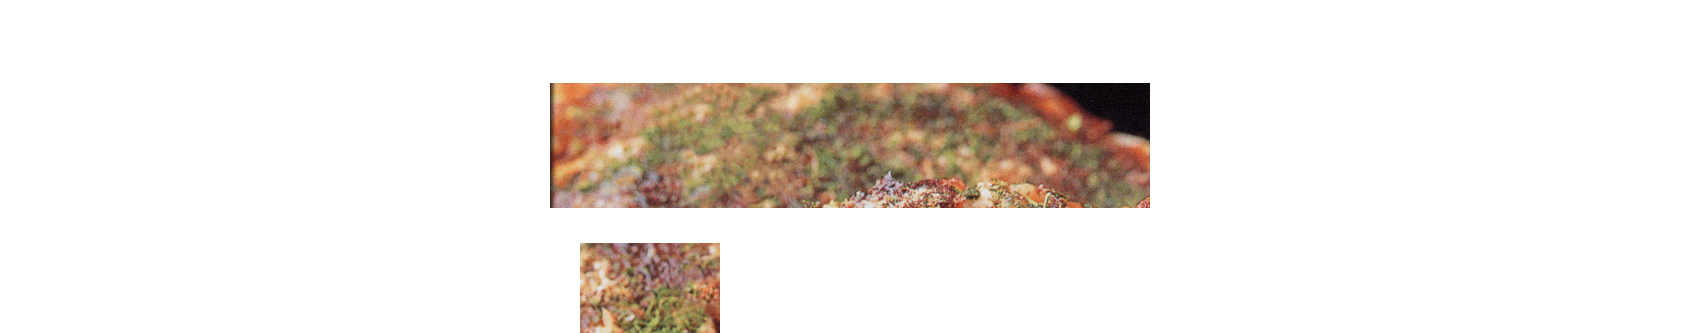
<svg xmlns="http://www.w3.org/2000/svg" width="1700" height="333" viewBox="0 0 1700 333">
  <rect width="100%" height="100%" fill="#fff"/>
  <image x="550" y="83" width="600" height="125" href="img/1.png"/>
  <image x="580" y="243" width="140" height="35" href="img/2.png"/>
  <image x="580" y="278" width="140" height="35" href="img/3.png"/>
  <image x="580" y="313" width="140" height="20" href="img/4.png"/>
</svg>
